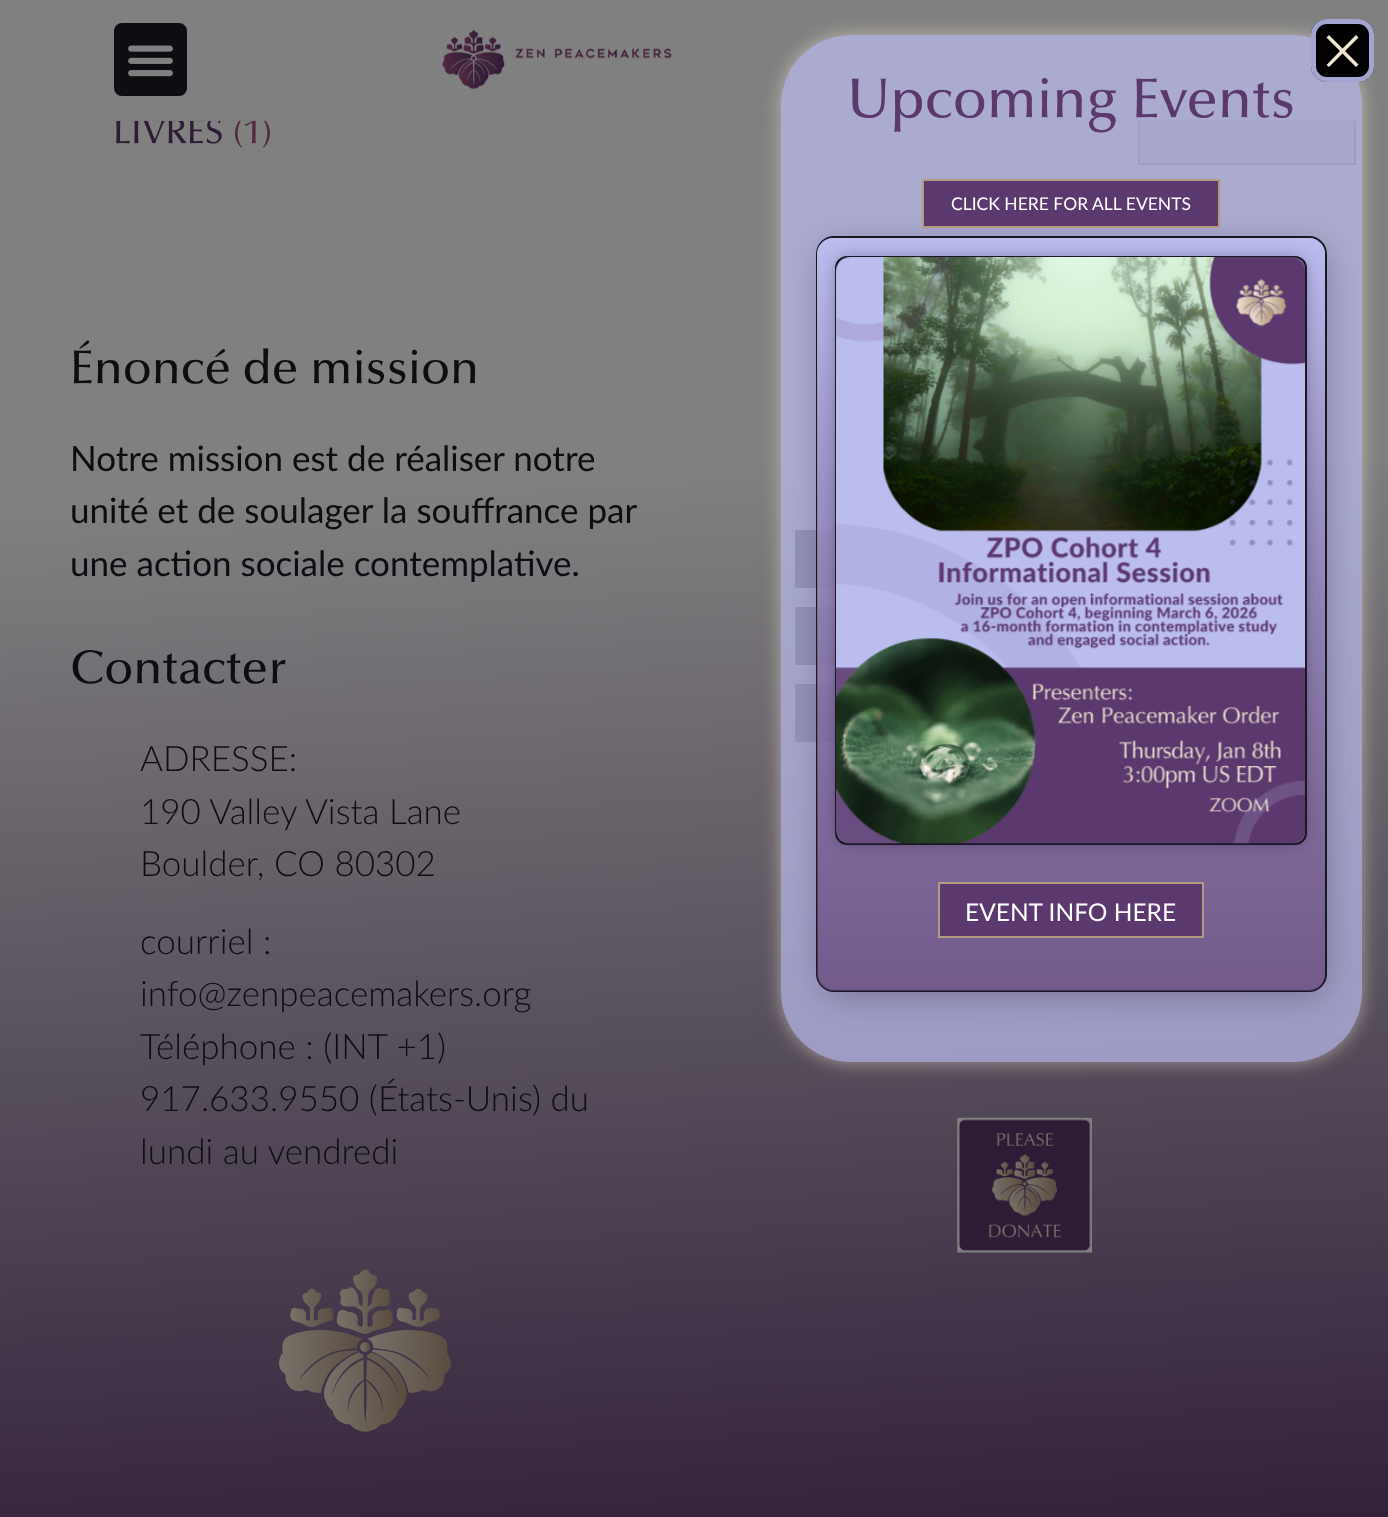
<svg xmlns="http://www.w3.org/2000/svg" width="1388" height="1517" viewBox="0 0 1388 1517">
  <defs>
    <linearGradient id="g1" gradientUnits="userSpaceOnUse" x1="654" y1="226" x2="735" y2="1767"><stop offset="0.16" stop-color="#808080"/><stop offset="0.9" stop-color="#2e1c37"/></linearGradient>
    <clipPath id="clip1"><path d="M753 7H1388V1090H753ZM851 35H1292C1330.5 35 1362 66.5 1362 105V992C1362 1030.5 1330.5 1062 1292 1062H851C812.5 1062 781 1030.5 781 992V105C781 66.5 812.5 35 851 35Z" clip-rule="evenodd"/></clipPath>
    <clipPath id="clip2"><path d="M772 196H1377V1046H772ZM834 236H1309C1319 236 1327 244 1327 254V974C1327 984 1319 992 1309 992H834C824 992 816 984 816 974V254C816 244 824 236 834 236Z" clip-rule="evenodd"/></clipPath>
    <linearGradient id="g2" gradientUnits="userSpaceOnUse" x1="1071" y1="238" x2="1071" y2="991"><stop offset="0" stop-color="#bbbdef"/><stop offset="1" stop-color="#5b386d" stop-opacity="0.65"/></linearGradient>
  </defs>
  <rect width="100%" height="100%" fill="#808080"/>
  <rect x="112" y="21" width="77" height="77" rx="10" fill="#0d0d12" stroke="#808080" stroke-width="4"/>
  <image x="128" y="45" width="45" height="32" href="img/1.png"/>
  <image x="442" y="30" width="230" height="60" href="img/2.png"/>
  <path d="M1140 121h214v42H1140z" fill="#78726a"/>
  <path d="M1139 92h216v72H1139z" fill="none" stroke="#5a4d41" stroke-width="2"/>
  <path d="M0 463h1388v1054H0z" fill="url(#g1)"/>
  <image x="278" y="1269" width="173" height="163" href="img/4.png"/>
  <path d="M795 530h40v58H795z" fill="#2a2a2a"/>
  <path d="M795 607h40v58H795z" fill="#2a2a2a"/>
  <path d="M795 684h40v58H795z" fill="#2a2a2a"/>
  <image x="957" y="1117" width="135" height="136" href="img/5.png"/>
  <text x="113" y="143" font-family="Optima" font-size="35" font-weight="500" fill="#2e1c37">LIVRES</text>
  <text x="232" y="143" font-family="Optima" font-size="35" font-weight="500" fill="#532941">(1)</text>
  <path d="M0 119h1388v2H0z" fill="#7d7c79"/>
  <path d="M212 91h1144v28H212z" fill="#808080"/>
  <g clip-path="url(#clip1)">
    <rect x="781" y="35" width="581" height="1027" rx="70" fill="#f0e4d38c" filter="blur(9px)"/>
  </g>
  <rect x="781" y="35" width="581" height="1027" rx="70" fill="#bbbdefb5"/>
  <rect x="1311" y="19" width="63" height="63" rx="16" fill="#000"/>
  <rect x="1313.5" y="21.5" width="58" height="58" rx="13.5" fill="none" stroke="#bbbdefde" stroke-width="5"/>
  <path d="M1342.5 53.5L1356 67L1358.5 64.5L1345 51L1358.5 37.5L1356 35L1342.5 48.5L1329 35L1326.5 37.5L1340 51L1326.5 65L1329 67Z" fill="#f0e4d3"/>
  <text x="847" y="117" font-family="Optima" font-size="56" font-weight="500" fill="#5b386d">Upcoming Events</text>
  <g clip-path="url(#clip2)">
    <rect x="826" y="250" width="497" height="742" rx="11" fill="#1d07285c" filter="blur(17.5px)"/>
  </g>
  <path d="M923 180h296v47H923z" fill="#5b386d" stroke="#b39a81" stroke-width="2"/>
  <text x="951" y="210" font-family="Lato" font-size="17.5" fill="#fff">CLICK HERE FOR ALL EVENTS</text>
  <rect x="817" y="237" width="509" height="754" rx="17" fill="none" stroke="#1a1923" stroke-width="2"/>
  <rect x="817" y="238" width="508" height="753" rx="16" fill="url(#g2)"/>
  <rect x="840" y="261" width="462" height="579" rx="7" fill="#1807258c" filter="blur(9px)"/>
  <rect x="836" y="257" width="470" height="587" rx="11" fill="none" stroke="#1a1923" stroke-width="2"/>
  <image x="836" y="257" width="469" height="587" href="img/3.png"/>
  <path d="M939 883h264v54H939z" fill="#5b386d" stroke="#b39a81" stroke-width="2"/>
  <text x="965" y="921" font-family="Lato" font-size="24.5" fill="#fff">EVENT INFO HERE</text>
  <text x="70" y="383" font-family="Optima" font-size="47.5" font-weight="500" fill="#0d0d12">Énoncé de mission</text>
  <g font-family="Lato" font-size="35" fill="#0d0d12">
    <text x="70" y="471">Notre mission est de réaliser notre</text>
    <text x="70" y="523">unité et de soulager la souffrance par</text>
    <text x="70" y="576">une action sociale contemplative.</text>
  </g>
  <text x="70" y="683" font-family="Optima" font-size="47.5" font-weight="500" fill="#0d0d12">Contacter</text>
  <g font-family="Lato" font-size="35" font-weight="300" fill="#0d0d12">
    <text x="140" y="771">ADRESSE:</text>
    <text x="140" y="824">190 Valley Vista Lane</text>
    <text x="140" y="876">Boulder, CO 80302</text>
    <text x="140" y="954">courriel :</text>
    <text x="140" y="1006">info@zenpeacemakers.org</text>
    <text x="140" y="1059">Téléphone : (INT +1)</text>
    <text x="140" y="1111">917.633.9550 (États-Unis) du</text>
    <text x="140" y="1164">lundi au vendredi</text>
  </g>
</svg>
